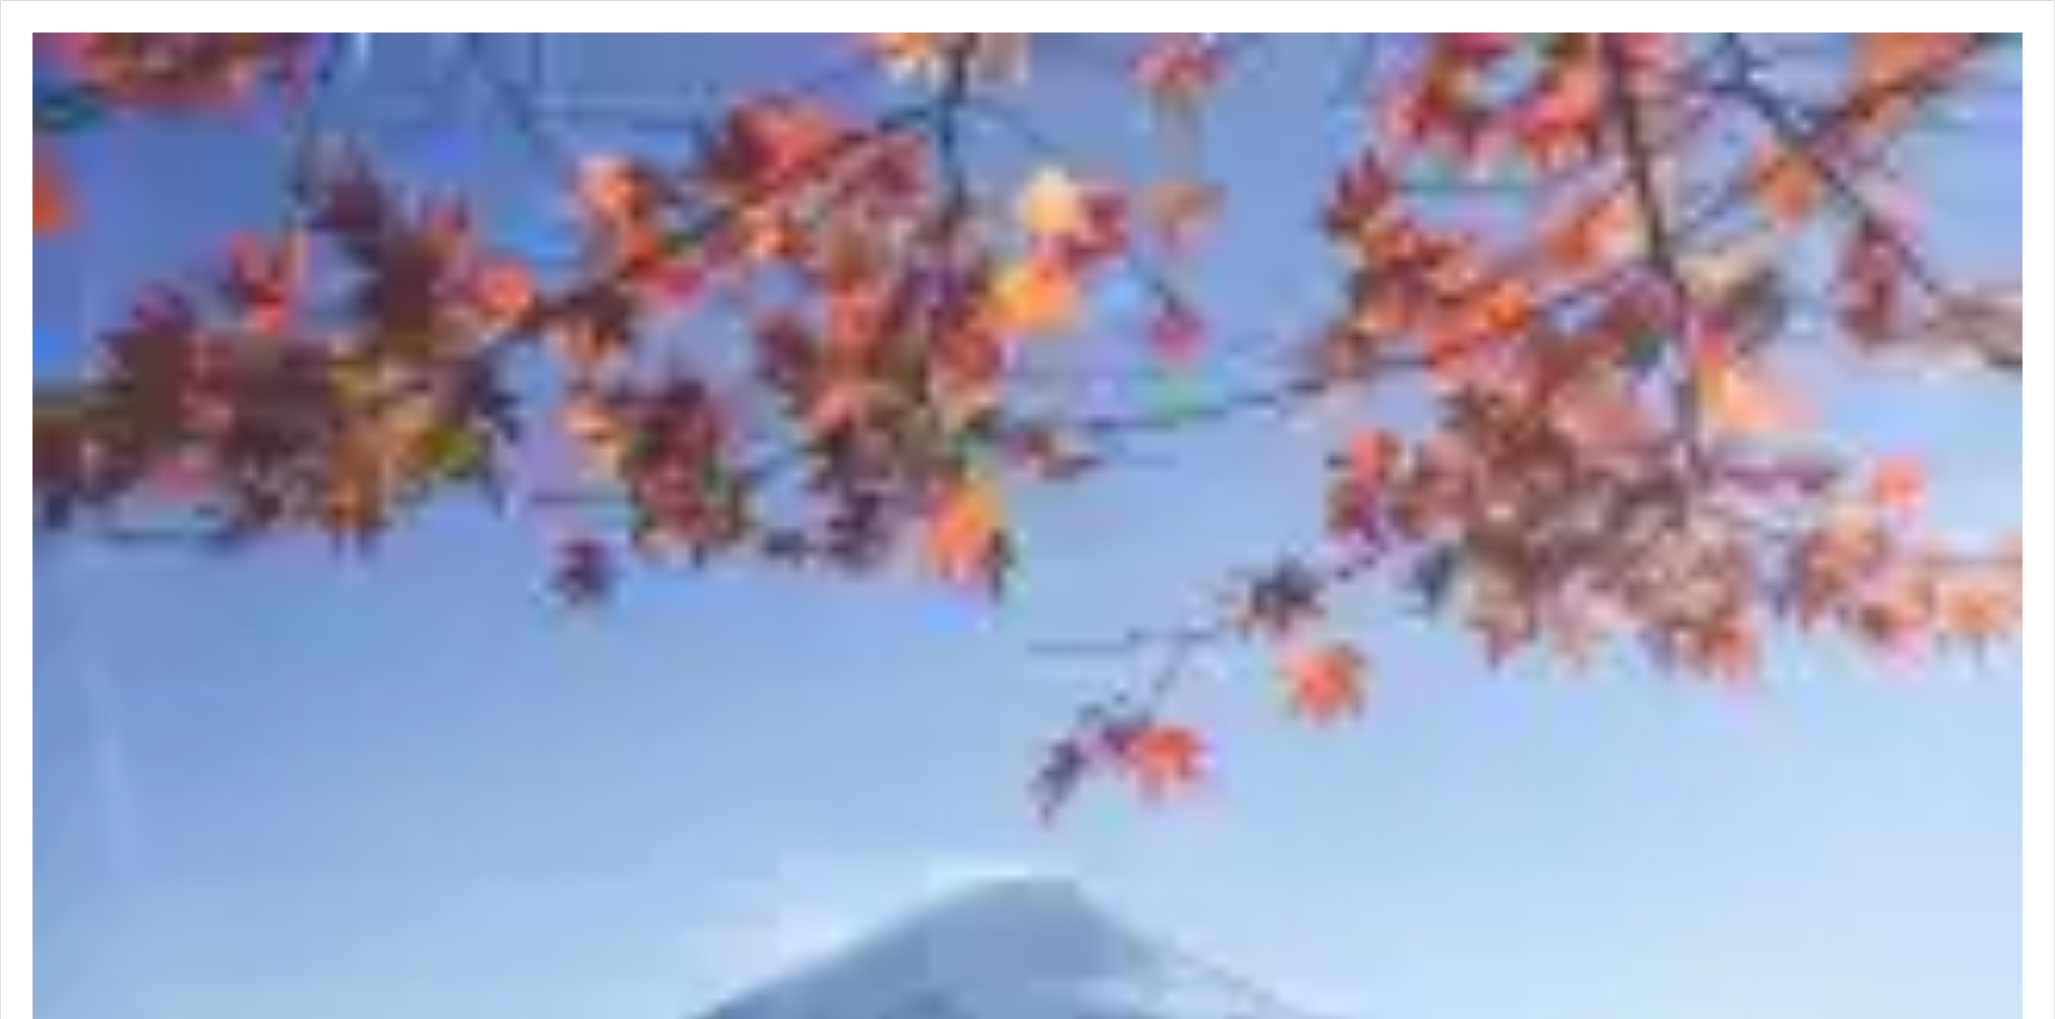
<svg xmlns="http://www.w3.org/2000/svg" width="2055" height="1019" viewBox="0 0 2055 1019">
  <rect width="100%" height="100%" fill="#fff"/>
  <path d="M0.5 0.5h2054v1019H0.5z" fill="none" stroke="#dcdcde"/>
  <image x="32" y="32" width="1991" height="987" href="img/1.png"/>
</svg>
